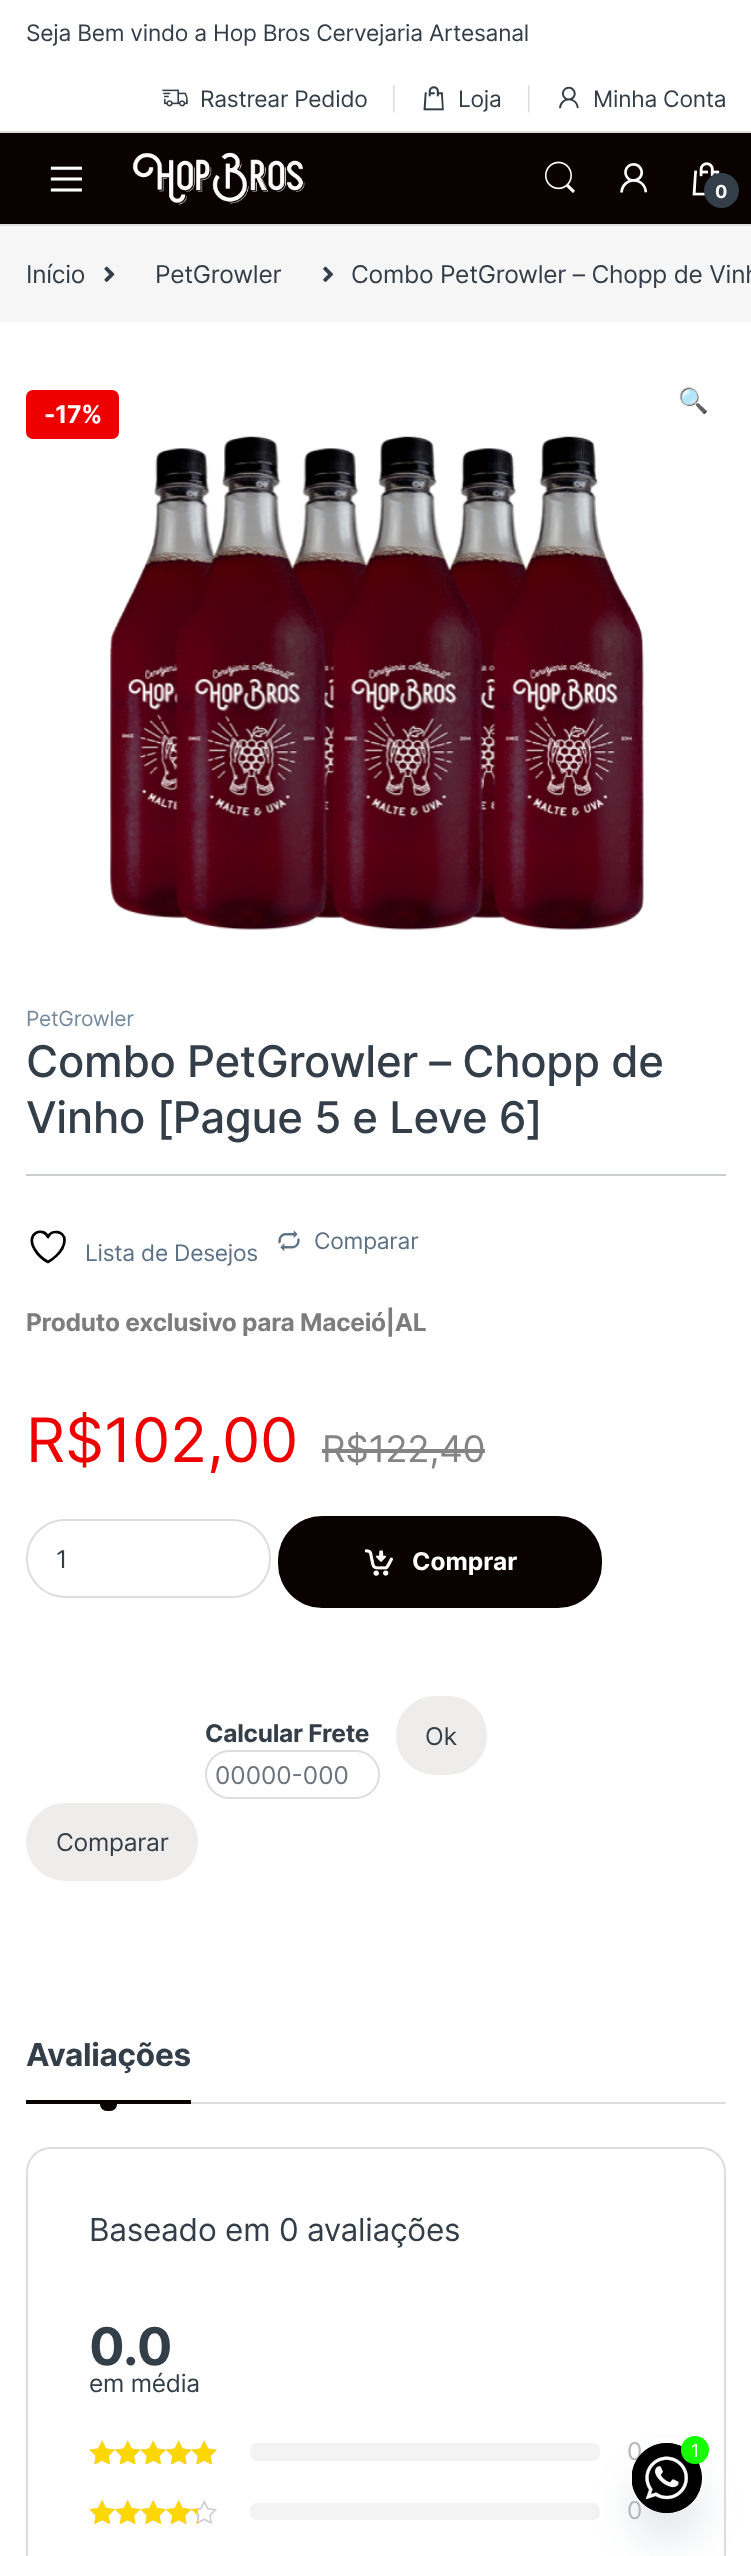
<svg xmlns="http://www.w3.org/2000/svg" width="751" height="2556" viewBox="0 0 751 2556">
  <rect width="100%" height="100%" fill="#fff"/>
  <path d="M0 131h751v2H0z" fill="#ddd"/>
  <image x="162" y="89" width="26" height="18" href="img/1.png"/>
  <image x="423" y="86" width="21" height="25" href="img/2.png"/>
  <image x="559" y="86" width="20" height="23" href="img/3.png"/>
  <path d="M0 224h751v2H0z" fill="#ddd"/>
  <path d="M0 133h751v91H0z" fill="#0a0101"/>
  <image x="50" y="166" width="32" height="26" href="img/4.png"/>
  <image x="132" y="152" width="173" height="53" href="img/5.png"/>
  <image x="545" y="161" width="30" height="32" href="img/6.png"/>
  <image x="620" y="163" width="28" height="30" href="img/7.png"/>
  <image x="692" y="162" width="28" height="34" href="img/8.png"/>
  <circle cx="721.5" cy="190.5" r="17.5" fill="#333e48"/>
  <path d="M0 226h751v96H0z" fill="#f7f6f6"/>
  <image x="104" y="266" width="11" height="16" href="img/9.png"/>
  <image x="323" y="266" width="10" height="16" href="img/10.png"/>
  <image x="110" y="436" width="534" height="494" href="img/11.png"/>
  <rect x="26" y="390" width="93" height="49" rx="7" fill="#e00"/>
  <path d="M26 1174h700v2H26z" fill="#cccfd1"/>
  <path d="M64.5 1240C64.5 1231 51.5 1229 48 1237C43.5 1226.5 25 1232.5 34.5 1249C37.5 1254.5 42.5 1259 48 1262C48 1262 64.5 1253 64.5 1240Z" fill="none" stroke="#000" stroke-width="2.7" stroke-linecap="round" stroke-linejoin="round"/>
  <image x="278" y="1230" width="22" height="22" href="img/12.png"/>
  <path d="M322 1449h163v4H322z" fill="#848484"/>
  <rect x="27" y="1520" width="243" height="77" rx="38" fill="none" stroke="#ddd" stroke-width="2"/>
  <rect x="278" y="1516" width="324" height="92" rx="44" fill="#0a0101"/>
  <image x="364" y="1549" width="29" height="27" href="img/13.png"/>
  <rect x="206" y="1751" width="173" height="47" rx="23.5" fill="none" stroke="#ddd" stroke-width="2"/>
  <rect x="397" y="1697" width="89" height="77" rx="38" fill="#efecec" stroke="#efecec" stroke-width="2"/>
  <rect x="27" y="1804" width="170" height="76" rx="38" fill="#efecec" stroke="#efecec" stroke-width="2"/>
  <path d="M26 2100h165v4H26z" fill="#0a0101"/>
  <path d="M100 2104H117C117 2108 114 2111 110 2111H107C103 2111 100 2108 100 2104Z" fill="#0a0101"/>
  <path d="M191 2102h535v2H191z" fill="#ddd"/>
  <rect x="27" y="2148" width="698" height="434" rx="24" fill="none" stroke="#ddd" stroke-width="2"/>
  <image x="89" y="2440" width="128" height="24" href="img/14.png"/>
  <image x="89" y="2440" width="128" height="24" href="img/15.png"/>
  <rect x="250" y="2443" width="350" height="18" rx="7" fill="#f3f3f3"/>
  <image x="89" y="2500" width="128" height="24" href="img/16.png"/>
  <image x="89" y="2500" width="109" height="24" href="img/17.png"/>
  <rect x="250" y="2503" width="350" height="17" rx="7" fill="#f3f3f3"/>
  <rect x="632" y="2471" width="70" height="70" rx="35" fill="#49687e29" filter="blur(21px)"/>
  <g font-family="Inter" font-size="22.75" letter-spacing="-0.25" fill="#333e48">
    <text x="26" y="41">Seja Bem vindo a Hop Bros Cervejaria Artesanal</text>
    <text x="200" y="107">Rastrear Pedido</text>
  </g>
  <text x="390" y="107" font-family="Inter" font-size="22.75" letter-spacing="-0.25" fill="#ddd">|</text>
  <text x="458" y="107" font-family="Inter" font-size="22.75" letter-spacing="-0.25" fill="#333e48">Loja</text>
  <text x="525" y="107" font-family="Inter" font-size="22.75" letter-spacing="-0.25" fill="#ddd">|</text>
  <text x="593" y="107" font-family="Inter" font-size="22.75" letter-spacing="-0.25" fill="#333e48">Minha Conta</text>
  <text x="715" y="198" font-family="Inter" font-size="18" font-weight="bold" letter-spacing="-0.25" fill="#fff">0</text>
  <g font-family="Inter" font-size="24.5" letter-spacing="-0.25" fill="#333e48">
    <text x="26" y="283">Início</text>
    <text x="155" y="283">PetGrowler</text>
    <text x="351" y="283">Combo PetGrowler – Chopp de Vinh</text>
  </g>
  <text x="44" y="423" font-family="Inter" font-size="24.5" font-weight="bold" letter-spacing="-0.25" fill="#fff">-17%</text>
  <text x="678" y="409" font-family="Noto Color Emoji" font-size="24.5" letter-spacing="-0.25" fill="#333e48">🔍</text>
  <text x="26" y="1026" font-family="Inter" font-size="21" letter-spacing="-0.25" fill="#768b9e">PetGrowler</text>
  <g font-family="Inter" font-size="43.75" font-weight="500" letter-spacing="-0.25" fill="#333e48">
    <text x="26" y="1077">Combo PetGrowler – Chopp de</text>
    <text x="26" y="1133">Vinho [Pague 5 e Leve 6]</text>
  </g>
  <g font-family="Inter" font-size="22.75" letter-spacing="-0.25" fill="#5d7184">
    <text x="85" y="1261">Lista de Desejos</text>
    <text x="314" y="1249">Comparar</text>
  </g>
  <text x="26" y="1331" font-family="Inter" font-size="24.5" font-weight="bold" letter-spacing="-0.25" fill="#7d7d7d">Produto exclusivo para Maceió|AL</text>
  <text x="26" y="1462" font-family="Inter" font-size="61.25" letter-spacing="-0.25" fill="#e00">R$102,00</text>
  <text x="322" y="1462" font-family="Inter" font-size="36.75" letter-spacing="-0.25" fill="#848484">R$122,40</text>
  <text x="56" y="1568" font-family="Inter" font-size="24.5" fill="#333e48">1</text>
  <text x="412" y="1570" font-family="Inter" font-size="24.5" font-weight="bold" fill="#fff">Comprar</text>
  <text x="205" y="1742" font-family="Inter" font-size="24.5" font-weight="bold" letter-spacing="-0.25" fill="#333e48">Calcular Frete</text>
  <text x="215" y="1784" font-family="Inter" font-size="24.5" fill="#6c757d">00000-000</text>
  <text x="425" y="1745" font-family="Inter" font-size="24.5" fill="#333e48">Ok</text>
  <text x="56" y="1851" font-family="Inter" font-size="24.5" letter-spacing="-0.25" fill="#333e48">Comparar</text>
  <text x="26" y="2066" font-family="Inter" font-size="31.5" font-weight="bold" letter-spacing="-0.25" fill="#333e48">Avaliações</text>
  <text x="89" y="2241" font-family="Inter" font-size="31.5" letter-spacing="-0.25" fill="#333e48">Baseado em 0 avaliações</text>
  <text x="89" y="2365" font-family="Inter" font-size="52" font-weight="bold" letter-spacing="-0.25" fill="#333e48">0.0</text>
  <text x="89" y="2392" font-family="Inter" font-size="24.5" letter-spacing="-0.25" fill="#333e48">em média</text>
  <g font-family="Inter" font-size="24.5" letter-spacing="-0.25" fill="#b6b6b6">
    <text x="627" y="2460">0</text>
    <text x="627" y="2519">0</text>
  </g>
  <circle cx="667" cy="2478" r="35" fill="#000"/>
  <image x="632" y="2443" width="70" height="70" href="img/18.png"/>
  <circle cx="695" cy="2450" r="14" fill="#16ff00"/>
  <text x="691" y="2457" font-family="Inter" font-size="18" letter-spacing="-0.25" fill="#fff">1</text>
</svg>
